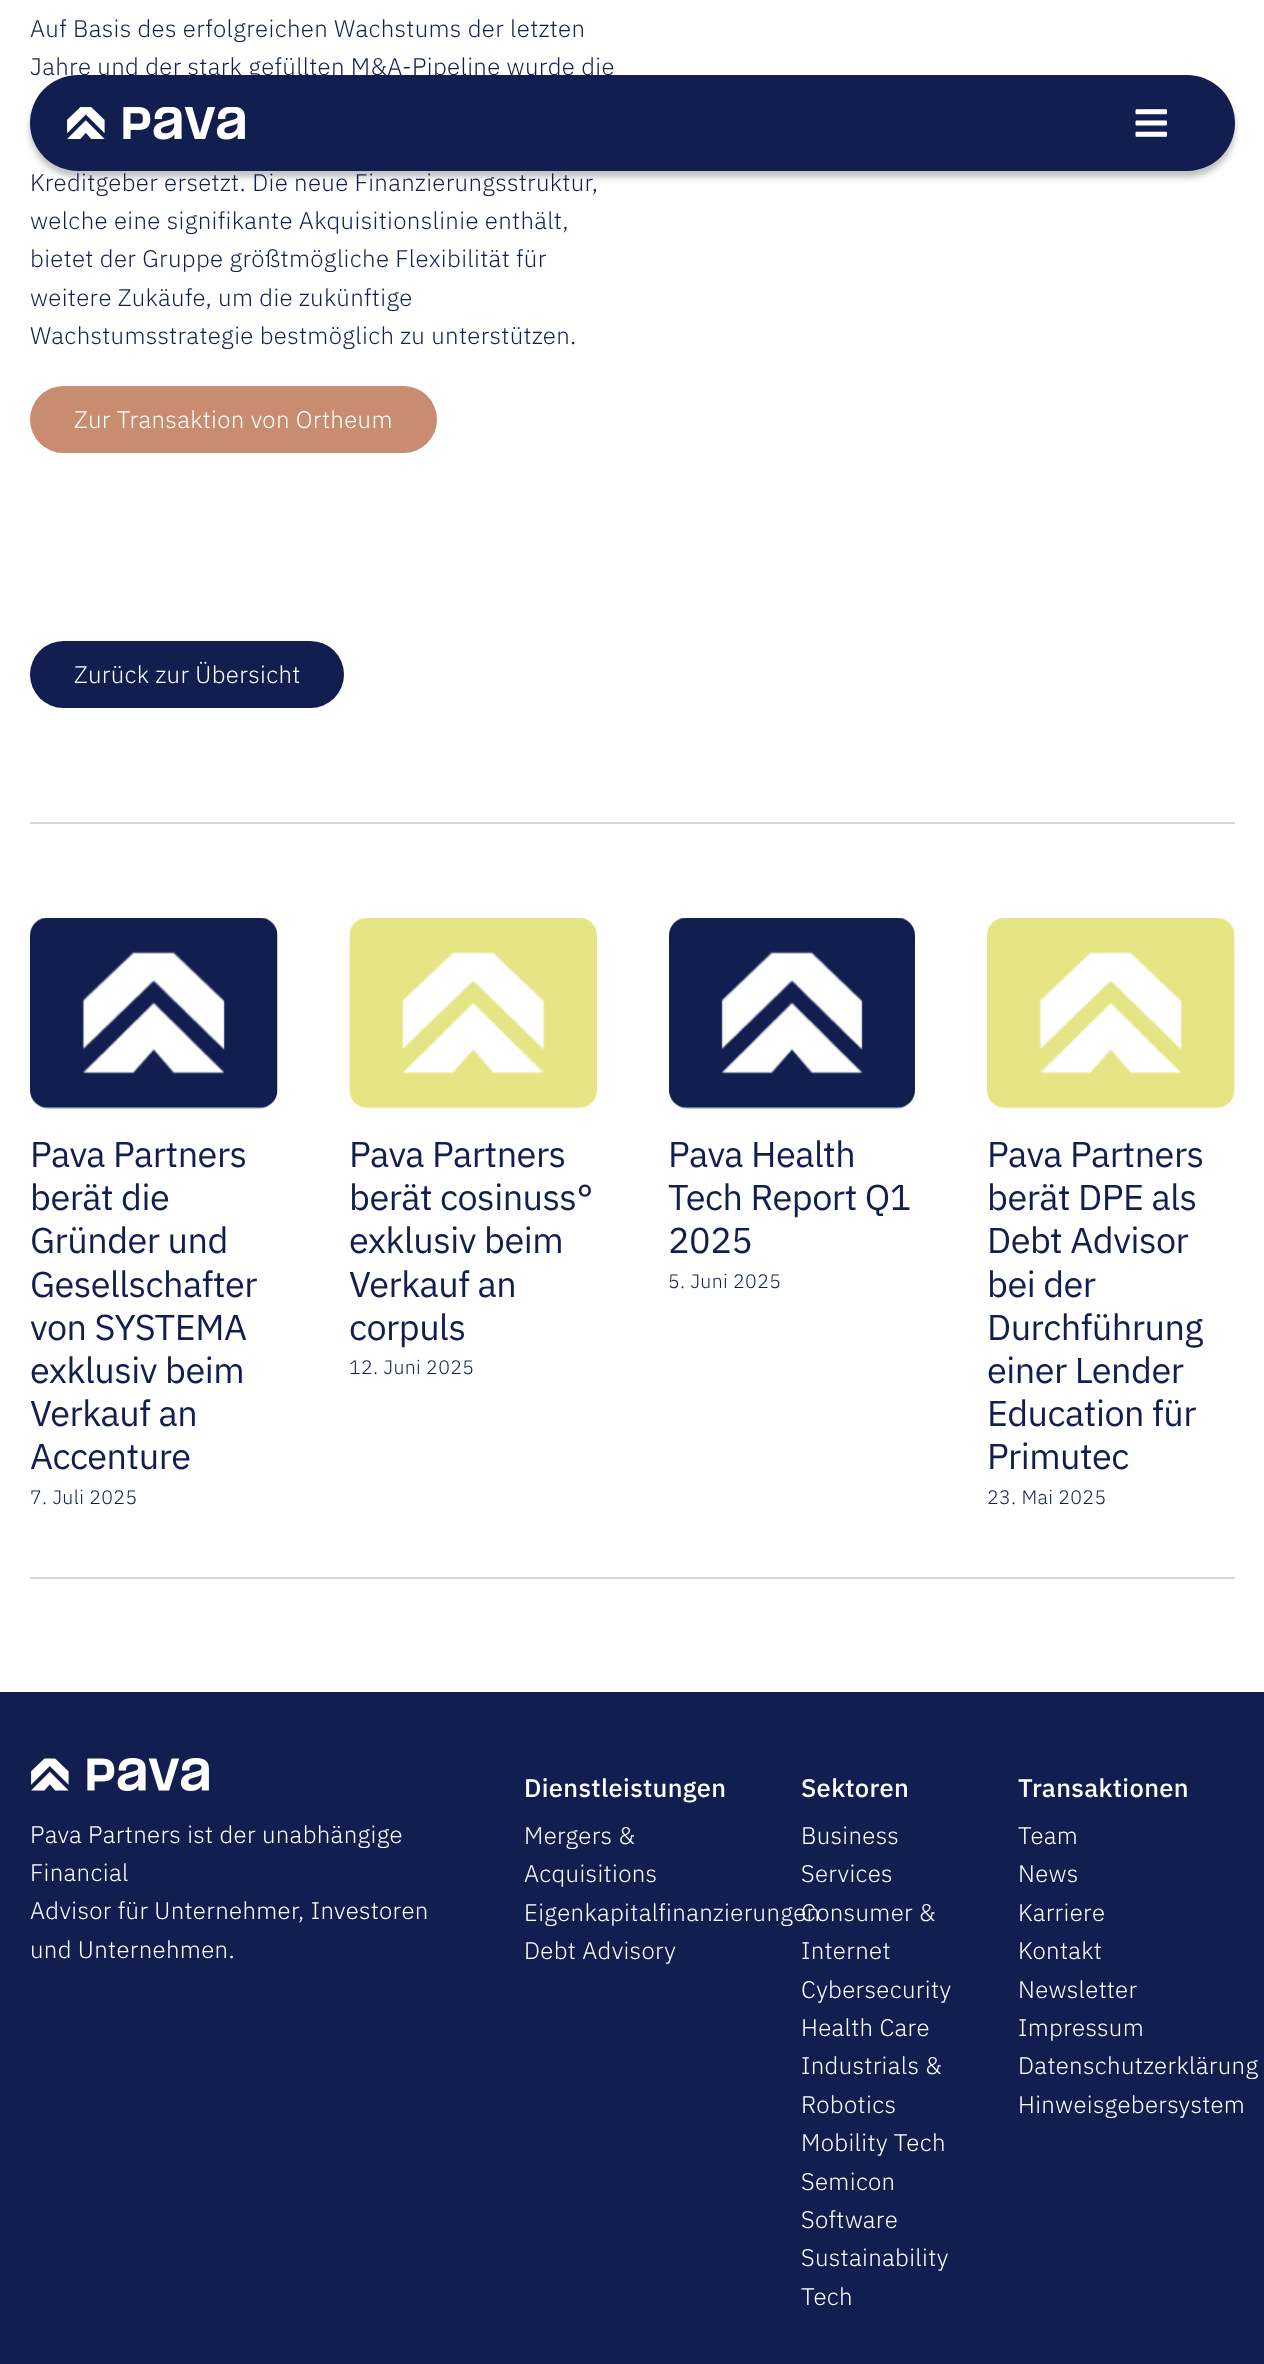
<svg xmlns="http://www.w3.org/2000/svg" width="1264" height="2364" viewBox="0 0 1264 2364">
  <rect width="100%" height="100%" fill="#fff"/>
  <rect x="30" y="386" width="407" height="67" rx="33.5" fill="#c88c70"/>
  <rect x="30" y="641" width="314" height="67" rx="33.5" fill="#121e50"/>
  <path d="M30 822h1205v2H30z" fill="#d0d7de"/>
  <image x="30" y="918" width="248" height="191" href="img/1.png"/>
  <image x="349" y="918" width="248" height="191" href="img/2.png"/>
  <image x="669" y="918" width="246" height="191" href="img/3.png"/>
  <image x="987" y="918" width="248" height="191" href="img/4.png"/>
  <path d="M30 1577h1205v2H30z" fill="#d0d7de"/>
  <rect x="30" y="81" width="1205" height="96" rx="48" fill="#00000040" filter="blur(3px)"/>
  <rect x="30" y="75" width="1205" height="96" rx="48" fill="#121e50"/>
  <image x="67" y="107" width="178" height="33" href="img/5.png"/>
  <image x="1135" y="109" width="32" height="28" href="img/6.png"/>
  <path d="M0 1692h1264v672H0z" fill="#121e50"/>
  <image x="31" y="1758" width="178" height="33" href="img/7.png"/>
  <g font-family="IBM Plex Sans" font-size="24" font-weight="300" letter-spacing="0.35" fill="#121e50">
    <text x="30" y="37">Auf Basis des erfolgreichen Wachstums der letzten</text>
    <text x="30" y="75">Jahre und der stark gefüllten M&amp;A-Pipeline wurde die</text>
    <text x="30" y="191">Kreditgeber ersetzt. Die neue Finanzierungsstruktur,</text>
    <text x="30" y="229">welche eine signifikante Akquisitionslinie enthält,</text>
    <text x="30" y="267">bietet der Gruppe größtmögliche Flexibilität für</text>
    <text x="30" y="306">weitere Zukäufe, um die zukünftige</text>
    <text x="30" y="344">Wachstumsstrategie bestmöglich zu unterstützen.</text>
  </g>
  <g font-family="IBM Plex Sans" font-size="24" font-weight="300" letter-spacing="0.35" fill="#fff">
    <text x="74" y="428">Zur Transaktion von Ortheum</text>
    <text x="74" y="683">Zurück zur Übersicht</text>
  </g>
  <g font-family="IBM Plex Sans" font-size="36" letter-spacing="-0.5" fill="#121e50">
    <text x="30" y="1167">Pava Partners</text>
    <text x="30" y="1210">berät die</text>
    <text x="30" y="1253">Gründer und</text>
    <text x="30" y="1297">Gesellschafter</text>
    <text x="30" y="1340">von SYSTEMA</text>
    <text x="30" y="1383">exklusiv beim</text>
    <text x="30" y="1426">Verkauf an</text>
    <text x="30" y="1469">Accenture</text>
  </g>
  <text x="30" y="1504" font-family="IBM Plex Sans" font-size="19.5" font-weight="300" letter-spacing="0.35" fill="#121e50">7. Juli 2025</text>
  <g font-family="IBM Plex Sans" font-size="36" letter-spacing="-0.5" fill="#121e50">
    <text x="349" y="1167">Pava Partners</text>
    <text x="349" y="1210">berät cosinuss°</text>
    <text x="349" y="1253">exklusiv beim</text>
    <text x="349" y="1297">Verkauf an</text>
    <text x="349" y="1340">corpuls</text>
  </g>
  <text x="349" y="1374" font-family="IBM Plex Sans" font-size="19.5" font-weight="300" letter-spacing="0.35" fill="#121e50">12. Juni 2025</text>
  <g font-family="IBM Plex Sans" font-size="36" letter-spacing="-0.5" fill="#121e50">
    <text x="668" y="1167">Pava Health</text>
    <text x="668" y="1210">Tech Report Q1</text>
    <text x="668" y="1253">2025</text>
  </g>
  <text x="668" y="1288" font-family="IBM Plex Sans" font-size="19.5" font-weight="300" letter-spacing="0.35" fill="#121e50">5. Juni 2025</text>
  <g font-family="IBM Plex Sans" font-size="36" letter-spacing="-0.5" fill="#121e50">
    <text x="987" y="1167">Pava Partners</text>
    <text x="987" y="1210">berät DPE als</text>
    <text x="987" y="1253">Debt Advisor</text>
    <text x="987" y="1297">bei der</text>
    <text x="987" y="1340">Durchführung</text>
    <text x="987" y="1383">einer Lender</text>
    <text x="987" y="1426">Education für</text>
    <text x="987" y="1469">Primutec</text>
  </g>
  <text x="987" y="1504" font-family="IBM Plex Sans" font-size="19.5" font-weight="300" letter-spacing="0.35" fill="#121e50">23. Mai 2025</text>
  <g font-family="IBM Plex Sans" font-size="24" font-weight="300" letter-spacing="0.35" fill="#fff">
    <text x="30" y="1843">Pava Partners ist der unabhängige</text>
    <text x="30" y="1881">Financial</text>
    <text x="30" y="1919">Advisor für Unternehmer, Investoren</text>
    <text x="30" y="1958">und Unternehmen.</text>
  </g>
  <text x="524" y="1797" font-family="IBM Plex Sans" font-size="25.5" font-weight="500" letter-spacing="0.35" fill="#fff">Dienstleistungen</text>
  <g font-family="IBM Plex Sans" font-size="24" font-weight="300" letter-spacing="0.35" fill="#fff">
    <text x="524" y="1844">Mergers &amp;</text>
    <text x="524" y="1882">Acquisitions</text>
    <text x="524" y="1921">Eigenkapitalfinanzierungen</text>
    <text x="524" y="1959">Debt Advisory</text>
  </g>
  <text x="801" y="1797" font-family="IBM Plex Sans" font-size="25.5" font-weight="500" letter-spacing="0.35" fill="#fff">Sektoren</text>
  <g font-family="IBM Plex Sans" font-size="24" font-weight="300" letter-spacing="0.35" fill="#fff">
    <text x="801" y="1844">Business</text>
    <text x="801" y="1882">Services</text>
    <text x="801" y="1921">Consumer &amp;</text>
    <text x="801" y="1959">Internet</text>
    <text x="801" y="1998">Cybersecurity</text>
    <text x="801" y="2036">Health Care</text>
    <text x="801" y="2074">Industrials &amp;</text>
    <text x="801" y="2113">Robotics</text>
    <text x="801" y="2151">Mobility Tech</text>
    <text x="801" y="2190">Semicon</text>
    <text x="801" y="2228">Software</text>
    <text x="801" y="2266">Sustainability</text>
    <text x="801" y="2305">Tech</text>
  </g>
  <text x="1018" y="1797" font-family="IBM Plex Sans" font-size="25.5" font-weight="500" letter-spacing="0.35" fill="#fff">Transaktionen</text>
  <g font-family="IBM Plex Sans" font-size="24" font-weight="300" letter-spacing="0.35" fill="#fff">
    <text x="1018" y="1844">Team</text>
    <text x="1018" y="1882">News</text>
    <text x="1018" y="1921">Karriere</text>
    <text x="1018" y="1959">Kontakt</text>
    <text x="1018" y="1998">Newsletter</text>
    <text x="1018" y="2036">Impressum</text>
    <text x="1018" y="2074">Datenschutzerklärung</text>
    <text x="1018" y="2113">Hinweisgebersystem</text>
  </g>
</svg>
